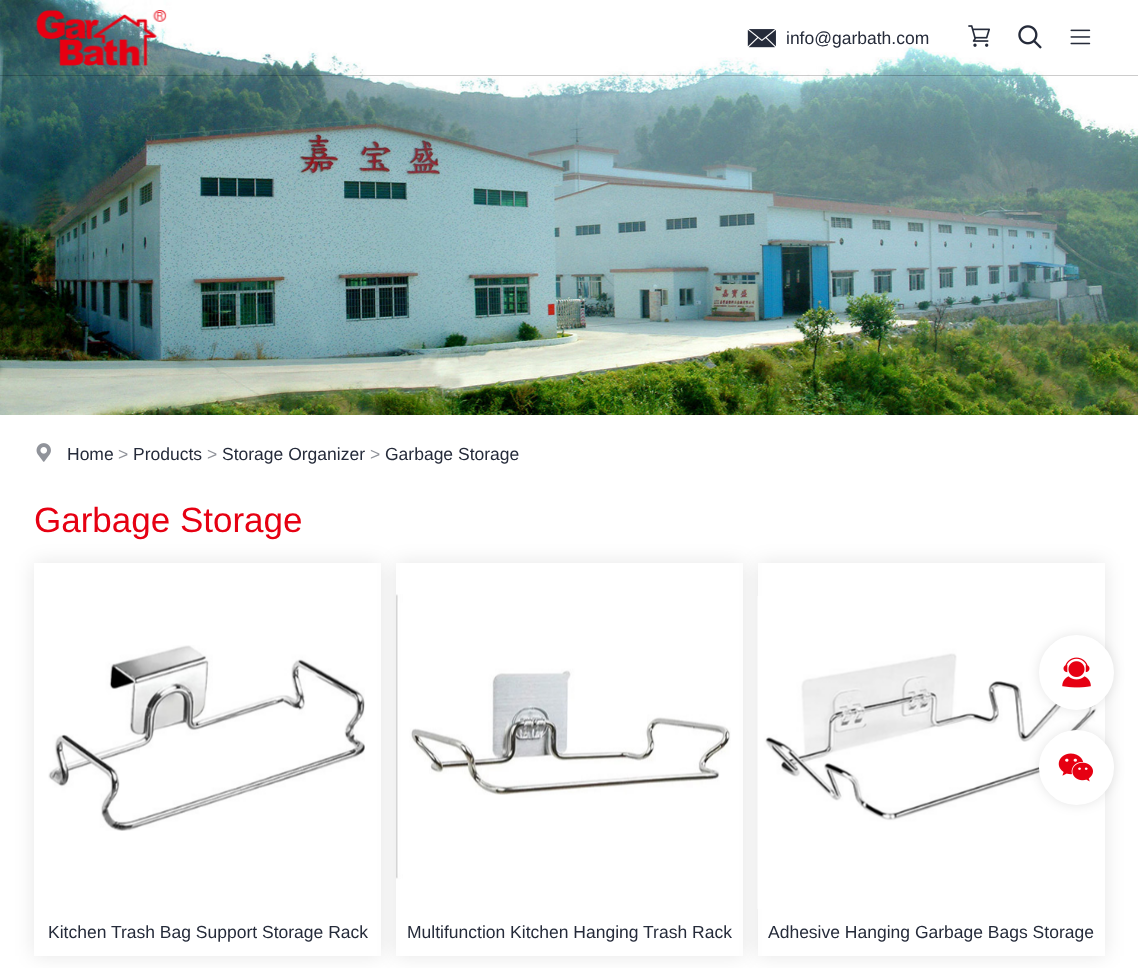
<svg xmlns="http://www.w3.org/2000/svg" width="1138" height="968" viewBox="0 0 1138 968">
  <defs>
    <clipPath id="clip1"><path d="M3 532H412V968H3ZM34 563H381V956H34Z" clip-rule="evenodd"/></clipPath>
    <clipPath id="clip2"><path d="M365 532H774V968H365ZM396 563H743V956H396Z" clip-rule="evenodd"/></clipPath>
    <clipPath id="clip3"><path d="M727 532H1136V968H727ZM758 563H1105V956H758Z" clip-rule="evenodd"/></clipPath>
  </defs>
  <rect width="100%" height="100%" fill="#fff"/>
  <image x="0" y="0" width="1138" height="415" href="img/1.png"/>
  <path d="M0 75h1138v1H0z" fill="#00000033"/>
  <image x="36" y="10" width="131" height="56" href="img/2.png"/>
  <image x="747" y="29" width="29" height="19" href="img/3.png"/>
  <image x="968" y="25" width="22" height="22" href="img/4.png"/>
  <image x="1018" y="25" width="24" height="24" href="img/5.png"/>
  <image x="1070" y="29" width="21" height="16" href="img/6.png"/>
  <image x="36" y="443" width="15" height="19" href="img/7.png"/>
  <g clip-path="url(#clip1)">
    <path d="M34 563h347v393H34z" fill="#0000001a" filter="blur(10px)"/>
  </g>
  <image x="48" y="645" width="317" height="186" href="img/8.png"/>
  <g clip-path="url(#clip2)">
    <path d="M396 563h347v393H396z" fill="#0000001a" filter="blur(10px)"/>
  </g>
  <image x="396" y="594" width="335" height="285" href="img/9.png"/>
  <g clip-path="url(#clip3)">
    <path d="M758 563h347v393H758z" fill="#0000001a" filter="blur(10px)"/>
  </g>
  <image x="757" y="596" width="341" height="313" href="img/10.png"/>
  <rect x="1039" y="635" width="75" height="75" rx="37.5" fill="#0000001a" filter="blur(6px)"/>
  <circle cx="1076.5" cy="672.5" r="34.5" fill="#fff" stroke="#fff" stroke-width="6"/>
  <image x="1062" y="657" width="29" height="31" href="img/11.png"/>
  <rect x="1039" y="730" width="75" height="75" rx="37.5" fill="#0000001a" filter="blur(6px)"/>
  <circle cx="1076.5" cy="767.5" r="34.5" fill="#fff" stroke="#fff" stroke-width="6"/>
  <image x="1058" y="753" width="35" height="29" href="img/12.png"/>
  <g font-family="Liberation Sans" font-size="17.5" fill="#252b3a">
    <text x="786" y="44">info@garbath.com</text>
    <text x="67" y="460">Home</text>
  </g>
  <text x="118" y="460" font-family="Liberation Sans" font-size="17.5" fill="#90939a">&gt;</text>
  <text x="133" y="460" font-family="Liberation Sans" font-size="17.5" fill="#252b3a">Products</text>
  <text x="207" y="460" font-family="Liberation Sans" font-size="17.5" fill="#90939a">&gt;</text>
  <text x="222" y="460" font-family="Liberation Sans" font-size="17.5" fill="#252b3a">Storage Organizer</text>
  <text x="370" y="460" font-family="Liberation Sans" font-size="17.5" fill="#90939a">&gt;</text>
  <text x="385" y="460" font-family="Liberation Sans" font-size="17.5" fill="#252b3a">Garbage Storage</text>
  <text x="34" y="532" font-family="Liberation Sans" font-size="35" fill="#e60012">Garbage Storage</text>
  <g font-family="Liberation Sans" font-size="17.5" fill="#252b3a">
    <text x="48" y="938">Kitchen Trash Bag Support Storage Rack</text>
    <text x="407" y="938">Multifunction Kitchen Hanging Trash Rack</text>
    <text x="768" y="938">Adhesive Hanging Garbage Bags Storage</text>
  </g>
</svg>
